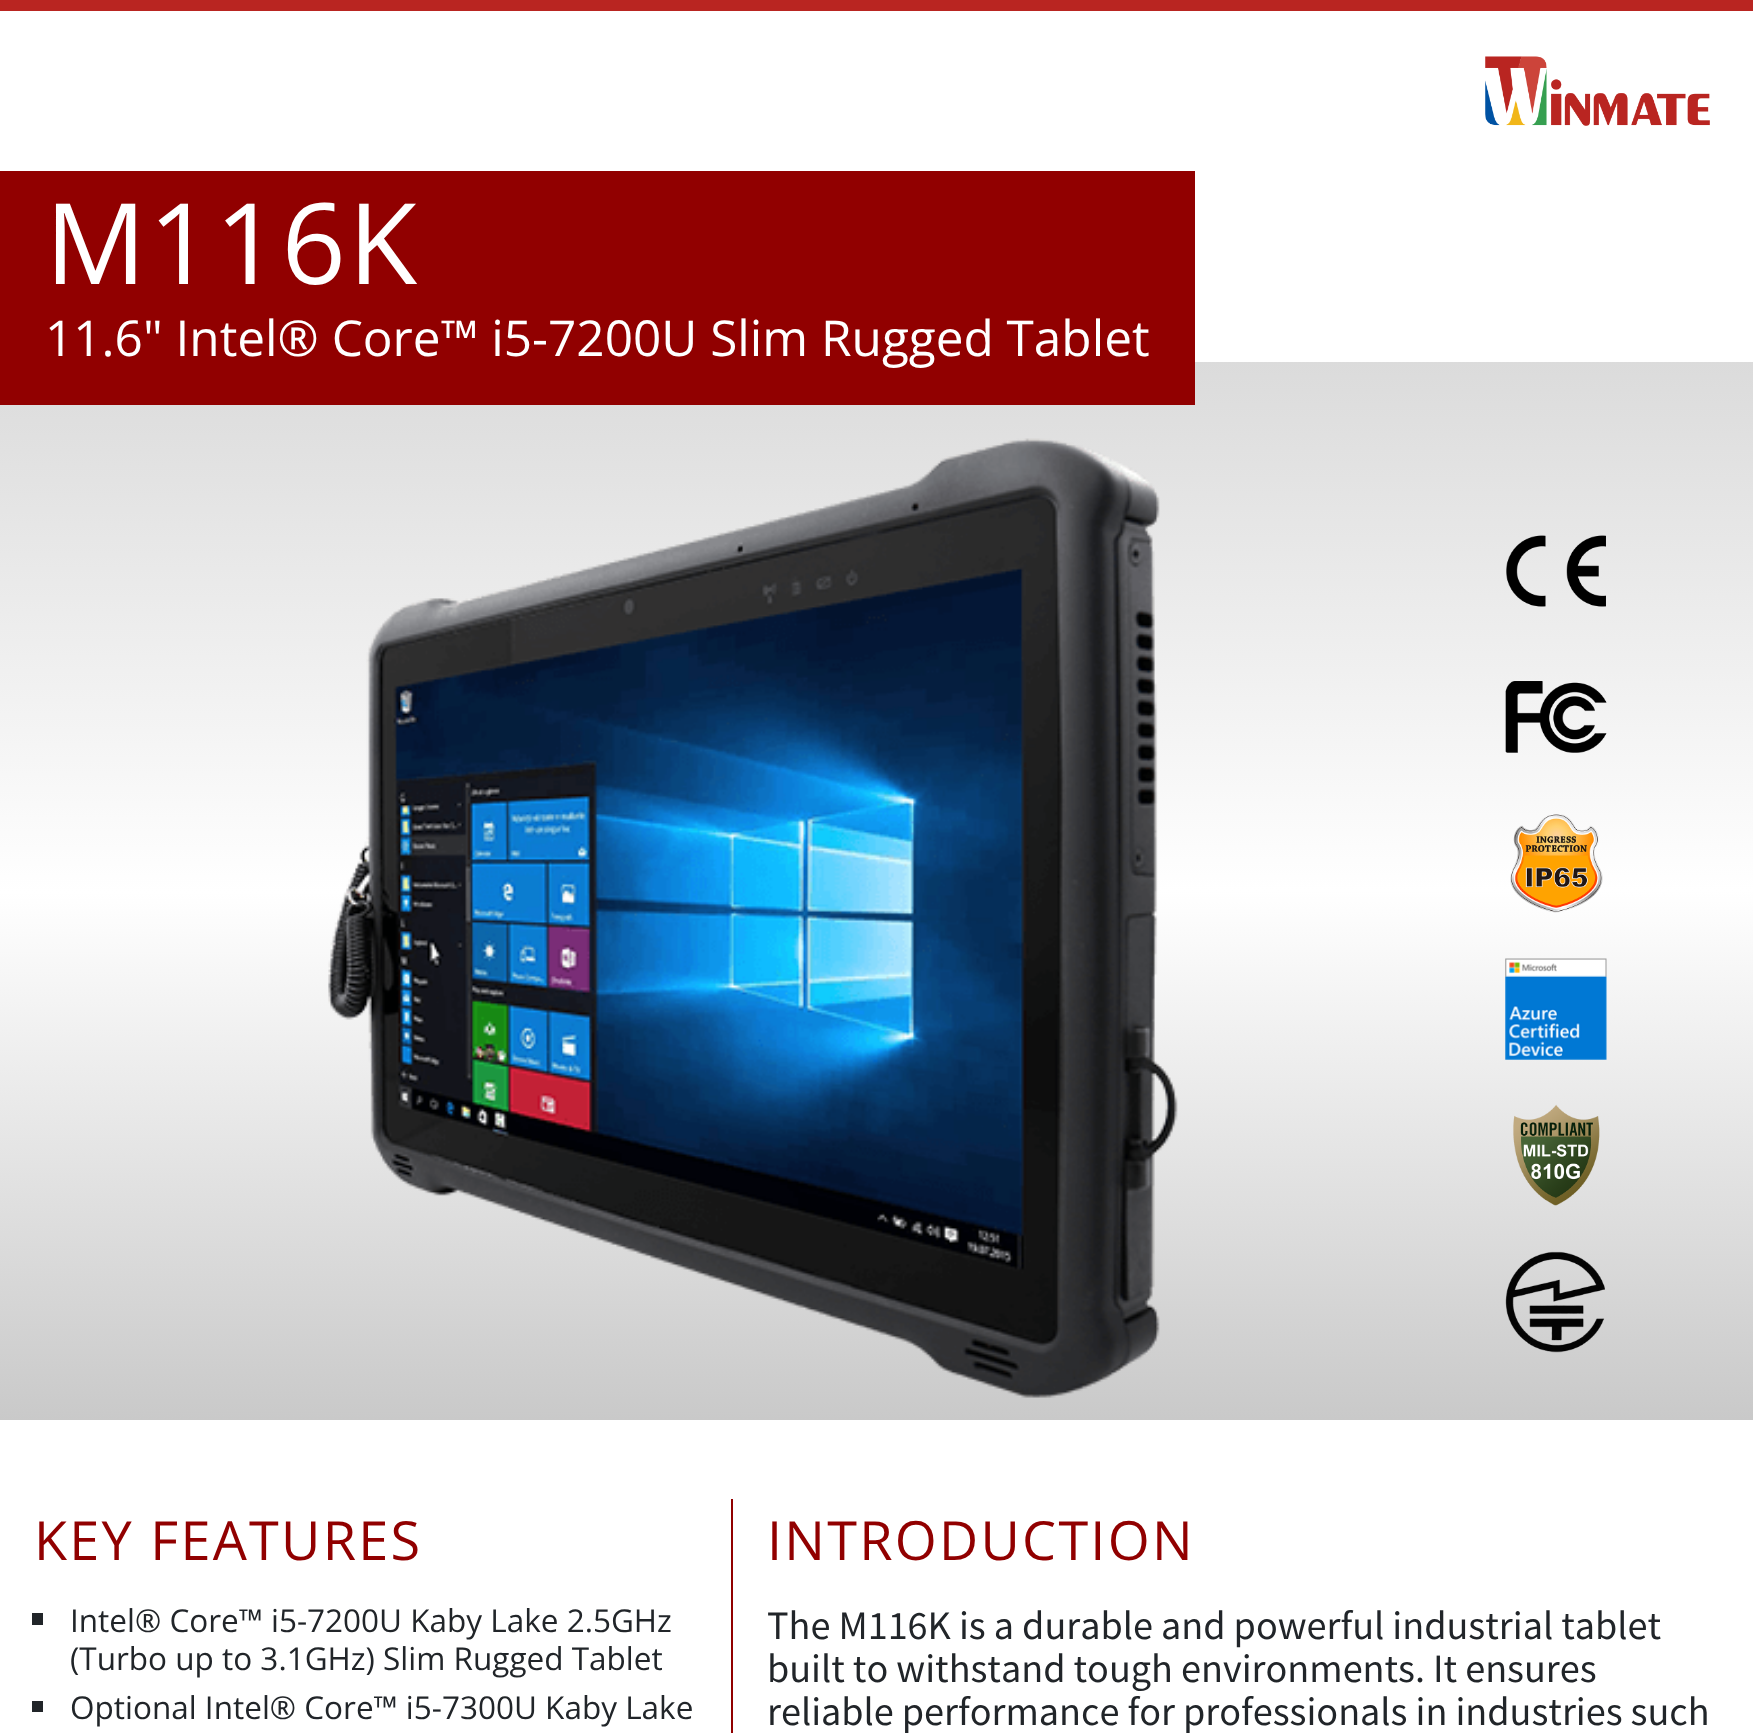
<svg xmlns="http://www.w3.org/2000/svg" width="1753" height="1733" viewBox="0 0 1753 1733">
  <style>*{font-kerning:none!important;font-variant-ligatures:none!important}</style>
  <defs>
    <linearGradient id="g1" gradientUnits="userSpaceOnUse" x1="877" y1="362" x2="878" y2="1420"><stop offset="0" stop-color="#dbdbdb"/><stop offset="0.5" stop-color="#fff"/><stop offset="1" stop-color="#c9c9c9"/></linearGradient>
  </defs>
  <rect width="100%" height="100%" fill="#fff"/>
  <path d="M0 0h1753v11H0z" fill="#b92521"/>
  <image x="1485" y="56" width="225" height="70" href="img/1.png"/>
  <path d="M0 362h1753v1058H0z" fill="url(#g1)"/>
  <path d="M0 171h1195v234H0z" fill="#910000"/>
  <image x="328" y="438" width="850" height="960" href="img/2.png"/>
  <image x="1506" y="535" width="100" height="72" href="img/3.png"/>
  <image x="1505" y="681" width="102" height="72" href="img/4.png"/>
  <image x="1510" y="814" width="93" height="99" href="img/5.png"/>
  <image x="1505" y="958" width="102" height="102" href="img/6.png"/>
  <image x="1513" y="1104" width="87" height="102" href="img/7.png"/>
  <image x="1505" y="1251" width="100" height="102" href="img/8.png"/>
  <path d="M32 1613h11v12H32z" fill="#212529"/>
  <path d="M32 1701h11v11H32z" fill="#212529"/>
  <path d="M731 1499h2v234H731z" fill="#910000"/>
  <text x="45" y="284" font-family="Open Sans" font-size="112.5" letter-spacing="2.25" fill="#fff">M116K</text>
  <text x="45" y="356" font-family="Open Sans" font-size="49.5" fill="#fff">11.6" Intel® Core™ i5-7200U Slim Rugged Tablet</text>
  <text x="34" y="1560" font-family="Open Sans" font-size="54" letter-spacing="2.25" fill="#910000">KEY FEATURES</text>
  <g font-family="Open Sans" font-size="31.5" fill="#212529">
    <text x="70" y="1632">Intel® Core™ i5-7200U Kaby Lake 2.5GHz</text>
    <text x="70" y="1670">(Turbo up to 3.1GHz) Slim Rugged Tablet</text>
    <text x="70" y="1719">Optional Intel® Core™ i5-7300U Kaby Lake</text>
  </g>
  <text x="767" y="1560" font-family="Open Sans" font-size="54" letter-spacing="2.25" fill="#910000">INTRODUCTION</text>
  <g font-family="Noto Sans TC" font-size="36" fill="#212529">
    <text x="767" y="1639">The M116K is a durable and powerful industrial tablet</text>
    <text x="767" y="1682">built to withstand tough environments. It ensures</text>
    <text x="767" y="1725">reliable performance for professionals in industries such</text>
  </g>
</svg>
